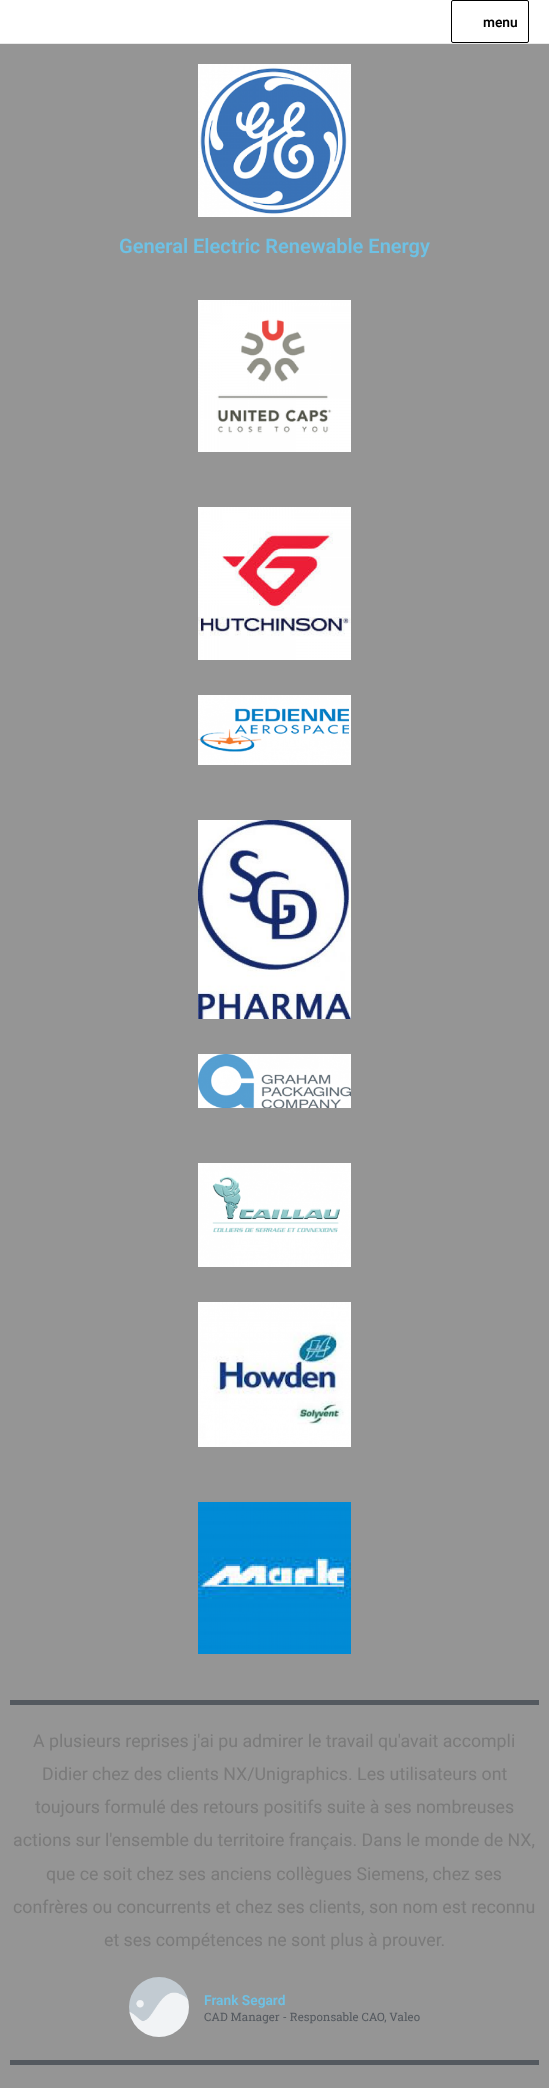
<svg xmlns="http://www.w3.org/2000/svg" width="549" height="2088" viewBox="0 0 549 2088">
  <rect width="100%" height="100%" fill="#959595"/>
  <path d="M0 43h549v1H0z" fill="#eaeaea"/>
  <path d="M0 0h549v43H0z" fill="#fff"/>
  <rect x="451.5" y="0.5" width="77" height="42" rx="1.5" fill="none" stroke="#000"/>
  <image x="198" y="64" width="153" height="153" href="img/1.png"/>
  <image x="198" y="300" width="153" height="152" href="img/2.png"/>
  <image x="198" y="507" width="153" height="153" href="img/3.png"/>
  <image x="198" y="695" width="153" height="70" href="img/4.png"/>
  <image x="198" y="820" width="153" height="199" href="img/5.png"/>
  <image x="198" y="1054" width="153" height="54" href="img/6.png"/>
  <image x="198" y="1163" width="153" height="104" href="img/7.png"/>
  <image x="198" y="1302" width="153" height="145" href="img/8.png"/>
  <image x="198" y="1502" width="153" height="152" href="img/9.png"/>
  <path d="M10 1700h529v5H10z" fill="#54595f"/>
  <image x="129" y="1977" width="60" height="60" href="img/10.png"/>
  <path d="M10 2060h529v5H10z" fill="#54595f"/>
  <text x="483" y="27" font-family="Roboto" font-size="13.75" font-weight="600" fill="#000">menu</text>
  <text x="119" y="253" font-family="Roboto" font-size="20" font-weight="600" fill="#6ec1e4">General Electric Renewable Energy</text>
  <g font-family="Roboto" font-size="17.75" fill="#7a7a7a">
    <text x="33" y="1747">A plusieurs reprises j'ai pu admirer le travail qu'avait accompli</text>
    <text x="42" y="1780">Didier chez des clients NX/Unigraphics. Les utilisateurs ont</text>
    <text x="35" y="1813">toujours formulé des retours positifs suite à ses nombreuses</text>
    <text x="13" y="1846">actions sur l'ensemble du territoire français. Dans le monde de NX,</text>
    <text x="46" y="1880">que ce soit chez ses anciens collègues Siemens, chez ses</text>
    <text x="13" y="1913">confrères ou concurrents et chez ses clients, son nom est reconnu</text>
    <text x="104" y="1946">et ses compétences ne sont plus à prouver.</text>
  </g>
  <text x="204" y="2005" font-family="Roboto" font-size="13.75" font-weight="600" fill="#6ec1e4">Frank Segard</text>
  <text x="204" y="2021" font-family="Roboto Slab" font-size="11.6" fill="#54595f">CAD Manager - Responsable CAO, Valeo</text>
</svg>
